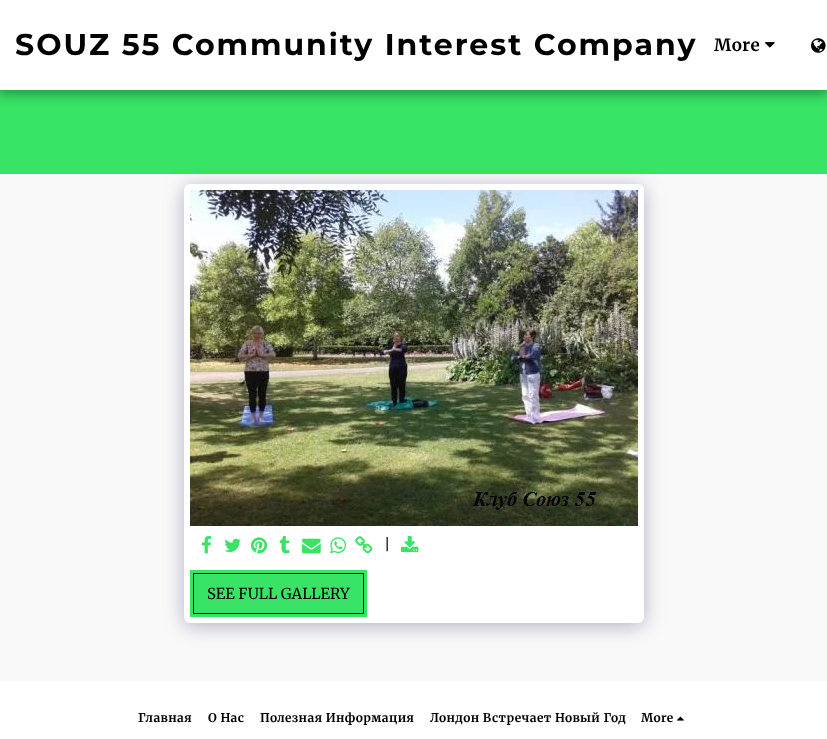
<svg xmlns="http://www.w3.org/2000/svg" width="827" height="739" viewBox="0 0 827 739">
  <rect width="100%" height="100%" fill="#fff"/>
  <path d="M0 90h827v84H0z" fill="#39e366"/>
  <path d="M-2 0h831v94H-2z" fill="#00000059" filter="blur(6px)"/>
  <path d="M0 0h827v90H0z" fill="#fff"/>
  <image x="765" y="42" width="10" height="6" href="img/1.png"/>
  <image x="811" y="38" width="15" height="15" href="img/2.png"/>
  <path d="M0 174h827v507H0z" fill="#f9f9f9"/>
  <rect x="184" y="187" width="460" height="439" rx="6" fill="#4d3f7a66" filter="blur(10px)"/>
  <rect x="184" y="184" width="460" height="439" rx="6" fill="#fff"/>
  <image x="190" y="190" width="448" height="336" href="img/3.png"/>
  <image x="202" y="536" width="10" height="18" href="img/4.png"/>
  <image x="224" y="538" width="17" height="15" href="img/5.png"/>
  <image x="251" y="537" width="16" height="17" href="img/6.png"/>
  <image x="279" y="536" width="11" height="18" href="img/7.png"/>
  <image x="302" y="538" width="19" height="16" href="img/8.png"/>
  <image x="330" y="537" width="16" height="17" href="img/9.png"/>
  <image x="355" y="536" width="18" height="18" href="img/10.png"/>
  <image x="401" y="536" width="18" height="17" href="img/11.png"/>
  <path d="M190 570h177v47H190z" fill="#39e366"/>
  <path d="M193.5 573.5h170v40H193.5z" fill="none" stroke="#000"/>
  <image x="677" y="716" width="7" height="5" href="img/12.png"/>
  <text x="15" y="55" font-family="Montserrat" font-size="30" font-weight="bold" letter-spacing="2" fill="#000">SOUZ 55 Community Interest Company</text>
  <text x="714" y="51" font-family="Merriweather" font-size="17" font-weight="bold" letter-spacing="0.5" fill="#000">More</text>
  <g font-family="Merriweather" font-size="15" fill="#000">
    <text x="384" y="550">|</text>
    <text x="207" y="599">SEE FULL GALLERY</text>
  </g>
  <g font-family="Merriweather" font-size="12" font-weight="bold" letter-spacing="0.4" fill="#000">
    <text x="138" y="722">Главная</text>
    <text x="208" y="722">О Нас</text>
    <text x="260" y="722">Полезная Информация</text>
    <text x="430" y="722">Лондон Встречает Новый Год</text>
    <text x="641" y="722">More</text>
  </g>
</svg>
